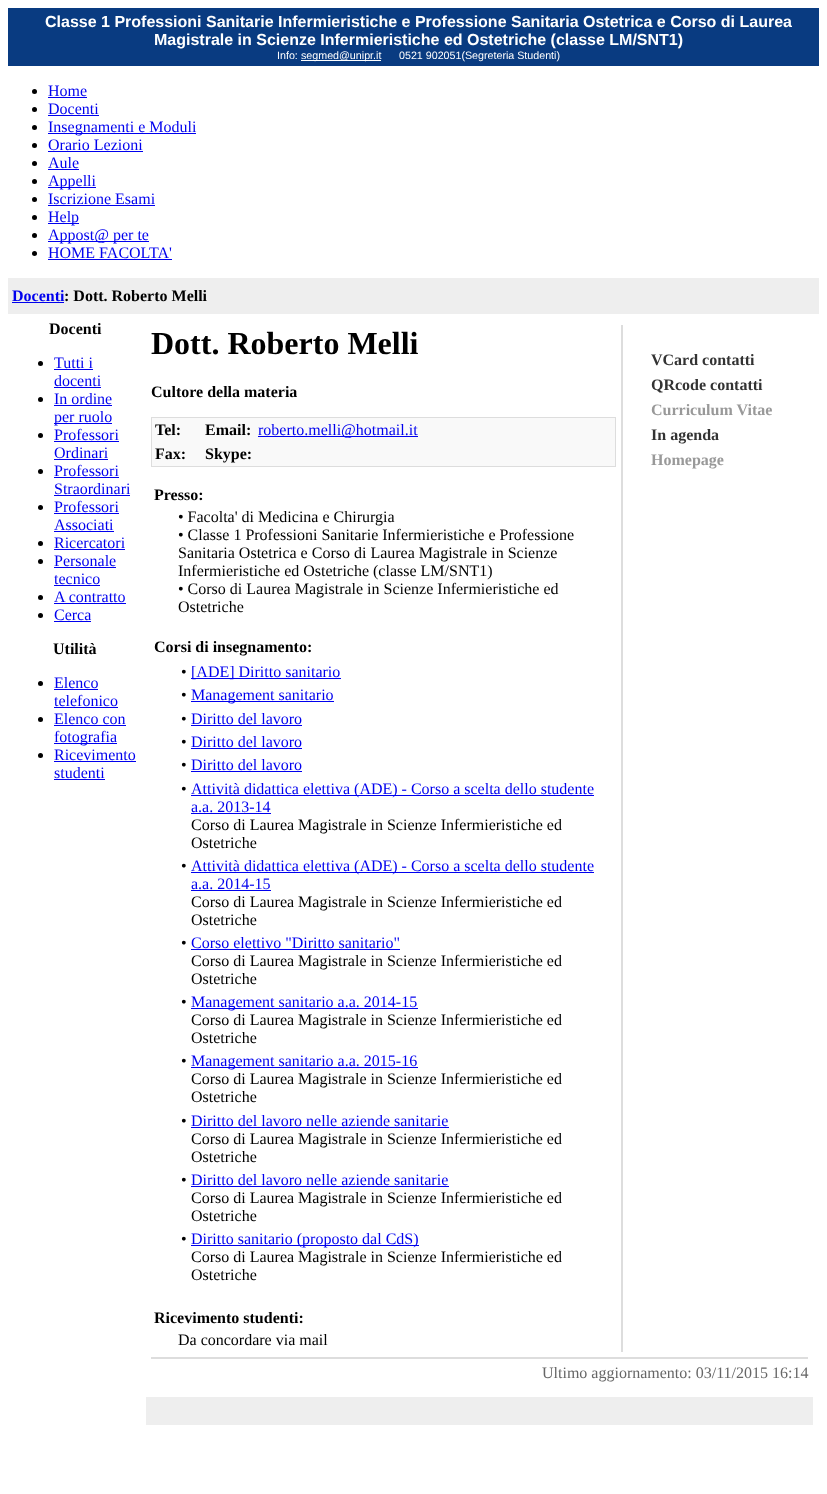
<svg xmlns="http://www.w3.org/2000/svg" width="827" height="1494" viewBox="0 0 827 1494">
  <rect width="100%" height="100%" fill="#fff"/>
  <path d="M8 8h811v58H8z" fill="#093b81"/>
  <path d="M301 60h80v1H301z" fill="#fff"/>
  <circle cx="34.5" cy="91.5" r="2.5" fill="#000"/>
  <path d="M48 97h39v1H48z" fill="#00e"/>
  <circle cx="34.5" cy="109.5" r="2.5" fill="#000"/>
  <path d="M48 115h51v1H48z" fill="#00e"/>
  <circle cx="34.5" cy="127.5" r="2.5" fill="#000"/>
  <path d="M48 133h148v1H48z" fill="#00e"/>
  <circle cx="34.5" cy="145.5" r="2.5" fill="#000"/>
  <path d="M48 151h95v1H48z" fill="#00e"/>
  <circle cx="34.5" cy="163.5" r="2.5" fill="#000"/>
  <path d="M48 169h31v1H48z" fill="#00e"/>
  <circle cx="34.5" cy="181.5" r="2.5" fill="#000"/>
  <path d="M48 187h48v1H48z" fill="#00e"/>
  <circle cx="34.5" cy="199.5" r="2.5" fill="#000"/>
  <path d="M48 205h107v1H48z" fill="#00e"/>
  <circle cx="34.5" cy="217.5" r="2.5" fill="#000"/>
  <path d="M48 223h31v1H48z" fill="#00e"/>
  <circle cx="34.5" cy="235.5" r="2.5" fill="#000"/>
  <path d="M48 241h101v1H48z" fill="#00e"/>
  <circle cx="34.5" cy="253.5" r="2.5" fill="#000"/>
  <path d="M48 259h124v1H48z" fill="#00e"/>
  <path d="M8 278h811v36H8z" fill="#eee"/>
  <path d="M12 302h52v1H12z" fill="#00e"/>
  <circle cx="40.5" cy="363.5" r="2.5" fill="#000"/>
  <path d="M54 369h39v1H54z" fill="#00e"/>
  <path d="M54 387h47v1H54z" fill="#00e"/>
  <circle cx="40.5" cy="399.5" r="2.5" fill="#000"/>
  <path d="M54 405h58v1H54z" fill="#00e"/>
  <path d="M54 423h58v1H54z" fill="#00e"/>
  <circle cx="40.5" cy="435.5" r="2.5" fill="#000"/>
  <path d="M54 441h65v1H54z" fill="#00e"/>
  <path d="M54 459h54v1H54z" fill="#00e"/>
  <circle cx="40.5" cy="471.5" r="2.5" fill="#000"/>
  <path d="M54 477h65v1H54z" fill="#00e"/>
  <path d="M54 495h76v1H54z" fill="#00e"/>
  <circle cx="40.5" cy="507.5" r="2.5" fill="#000"/>
  <path d="M54 513h65v1H54z" fill="#00e"/>
  <path d="M54 531h60v1H54z" fill="#00e"/>
  <circle cx="40.5" cy="543.5" r="2.5" fill="#000"/>
  <path d="M54 549h71v1H54z" fill="#00e"/>
  <circle cx="40.5" cy="561.5" r="2.5" fill="#000"/>
  <path d="M54 567h62v1H54z" fill="#00e"/>
  <path d="M54 585h46v1H54z" fill="#00e"/>
  <circle cx="40.5" cy="597.5" r="2.5" fill="#000"/>
  <path d="M54 603h72v1H54z" fill="#00e"/>
  <circle cx="40.5" cy="615.5" r="2.5" fill="#000"/>
  <path d="M54 621h37v1H54z" fill="#00e"/>
  <circle cx="40.5" cy="683.5" r="2.5" fill="#000"/>
  <path d="M54 689h44v1H54z" fill="#00e"/>
  <path d="M54 707h64v1H54z" fill="#00e"/>
  <circle cx="40.5" cy="719.5" r="2.5" fill="#000"/>
  <path d="M54 725h72v1H54z" fill="#00e"/>
  <path d="M54 743h63v1H54z" fill="#00e"/>
  <circle cx="40.5" cy="755.5" r="2.5" fill="#000"/>
  <path d="M54 761h82v1H54z" fill="#00e"/>
  <path d="M54 779h51v1H54z" fill="#00e"/>
  <path d="M151 417h465v50H151z" fill="#ddd"/>
  <path d="M152 418h463v48H152z" fill="#f9f9f9"/>
  <path d="M258 436h160v1H258z" fill="#00e"/>
  <path d="M191 678h150v1H191z" fill="#00e"/>
  <path d="M191 701h143v1H191z" fill="#00e"/>
  <path d="M191 725h111v1H191z" fill="#00e"/>
  <path d="M191 748h111v1H191z" fill="#00e"/>
  <path d="M191 771h111v1H191z" fill="#00e"/>
  <path d="M191 795h403v1H191z" fill="#00e"/>
  <path d="M191 813h80v1H191z" fill="#00e"/>
  <path d="M191 872h403v1H191z" fill="#00e"/>
  <path d="M191 890h80v1H191z" fill="#00e"/>
  <path d="M191 949h209v1H191z" fill="#00e"/>
  <path d="M191 1008h227v1H191z" fill="#00e"/>
  <path d="M191 1067h227v1H191z" fill="#00e"/>
  <path d="M191 1127h258v1H191z" fill="#00e"/>
  <path d="M191 1186h258v1H191z" fill="#00e"/>
  <path d="M191 1245h228v1H191z" fill="#00e"/>
  <path d="M621 325h2v1027H621z" fill="#ddd"/>
  <path d="M151 1357h657v2H151z" fill="#ddd"/>
  <path d="M146 1397h667v28H146z" fill="#eee"/>
  <g font-family="Liberation Sans" font-size="16" font-weight="bold" fill="#fff">
    <text x="45" y="27">Classe 1 Professioni Sanitarie Infermieristiche e Professione Sanitaria Ostetrica e Corso di Laurea</text>
    <text x="154" y="45">Magistrale in Scienze Infermieristiche ed Ostetriche (classe LM/SNT1)</text>
  </g>
  <g font-family="Liberation Sans" font-size="10.7" fill="#fff">
    <text x="277" y="59">Info:</text>
    <text x="301" y="59">segmed@unipr.it</text>
    <text x="399" y="59">0521 902051(Segreteria Studenti)</text>
  </g>
  <g font-family="Liberation Serif" font-size="16" fill="#00e">
    <text x="48" y="96">Home</text>
    <text x="48" y="114">Docenti</text>
    <text x="48" y="132">Insegnamenti e Moduli</text>
    <text x="48" y="150">Orario Lezioni</text>
    <text x="48" y="168">Aule</text>
    <text x="48" y="186">Appelli</text>
    <text x="48" y="204">Iscrizione Esami</text>
    <text x="48" y="222">Help</text>
    <text x="48" y="240">Appost@ per te</text>
    <text x="48" y="258">HOME FACOLTA'</text>
  </g>
  <text x="12" y="301" font-family="Liberation Serif" font-size="16" font-weight="bold" fill="#00e">Docenti</text>
  <g font-family="Liberation Serif" font-size="16" font-weight="bold" fill="#000">
    <text x="64" y="301">: Dott. Roberto Melli</text>
    <text x="49" y="334">Docenti</text>
  </g>
  <g font-family="Liberation Serif" font-size="16" fill="#00e">
    <text x="54" y="368">Tutti i</text>
    <text x="54" y="386">docenti</text>
    <text x="54" y="404">In ordine</text>
    <text x="54" y="422">per ruolo</text>
    <text x="54" y="440">Professori</text>
    <text x="54" y="458">Ordinari</text>
    <text x="54" y="476">Professori</text>
    <text x="54" y="494">Straordinari</text>
    <text x="54" y="512">Professori</text>
    <text x="54" y="530">Associati</text>
    <text x="54" y="548">Ricercatori</text>
    <text x="54" y="566">Personale</text>
    <text x="54" y="584">tecnico</text>
    <text x="54" y="602">A contratto</text>
    <text x="54" y="620">Cerca</text>
  </g>
  <text x="53" y="654" font-family="Liberation Serif" font-size="16" font-weight="bold" fill="#000">Utilità</text>
  <g font-family="Liberation Serif" font-size="16" fill="#00e">
    <text x="54" y="688">Elenco</text>
    <text x="54" y="706">telefonico</text>
    <text x="54" y="724">Elenco con</text>
    <text x="54" y="742">fotografia</text>
    <text x="54" y="760">Ricevimento</text>
    <text x="54" y="778">studenti</text>
  </g>
  <text x="151" y="354" font-family="Liberation Serif" font-size="32" font-weight="bold" fill="#000">Dott. Roberto Melli</text>
  <g font-family="Liberation Serif" font-size="16" font-weight="bold" fill="#000">
    <text x="151" y="397">Cultore della materia</text>
    <text x="155" y="435">Tel:</text>
    <text x="205" y="435">Email:</text>
  </g>
  <text x="258" y="435" font-family="Liberation Serif" font-size="16" fill="#00e">roberto.melli@hotmail.it</text>
  <g font-family="Liberation Serif" font-size="16" font-weight="bold" fill="#000">
    <text x="155" y="459">Fax:</text>
    <text x="205" y="459">Skype:</text>
    <text x="154" y="500">Presso:</text>
  </g>
  <g font-family="Liberation Serif" font-size="16" fill="#000">
    <text x="178" y="522">• Facolta' di Medicina e Chirurgia</text>
    <text x="178" y="540">• Classe 1 Professioni Sanitarie Infermieristiche e Professione</text>
    <text x="178" y="558">Sanitaria Ostetrica e Corso di Laurea Magistrale in Scienze</text>
    <text x="178" y="576">Infermieristiche ed Ostetriche (classe LM/SNT1)</text>
    <text x="178" y="594">• Corso di Laurea Magistrale in Scienze Infermieristiche ed</text>
    <text x="178" y="612">Ostetriche</text>
  </g>
  <text x="154" y="652" font-family="Liberation Serif" font-size="16" font-weight="bold" fill="#000">Corsi di insegnamento:</text>
  <text x="181" y="677" font-family="Liberation Serif" font-size="16" fill="#000">•</text>
  <text x="191" y="677" font-family="Liberation Serif" font-size="16" fill="#00e">[ADE] Diritto sanitario</text>
  <text x="181" y="700" font-family="Liberation Serif" font-size="16" fill="#000">•</text>
  <text x="191" y="700" font-family="Liberation Serif" font-size="16" fill="#00e">Management sanitario</text>
  <text x="181" y="724" font-family="Liberation Serif" font-size="16" fill="#000">•</text>
  <text x="191" y="724" font-family="Liberation Serif" font-size="16" fill="#00e">Diritto del lavoro</text>
  <text x="181" y="747" font-family="Liberation Serif" font-size="16" fill="#000">•</text>
  <text x="191" y="747" font-family="Liberation Serif" font-size="16" fill="#00e">Diritto del lavoro</text>
  <text x="181" y="770" font-family="Liberation Serif" font-size="16" fill="#000">•</text>
  <text x="191" y="770" font-family="Liberation Serif" font-size="16" fill="#00e">Diritto del lavoro</text>
  <text x="181" y="794" font-family="Liberation Serif" font-size="16" fill="#000">•</text>
  <g font-family="Liberation Serif" font-size="16" fill="#00e">
    <text x="191" y="794">Attività didattica elettiva (ADE) - Corso a scelta dello studente</text>
    <text x="191" y="812">a.a. 2013-14</text>
  </g>
  <g font-family="Liberation Serif" font-size="16" fill="#000">
    <text x="191" y="830">Corso di Laurea Magistrale in Scienze Infermieristiche ed</text>
    <text x="191" y="848">Ostetriche</text>
    <text x="181" y="871">•</text>
  </g>
  <g font-family="Liberation Serif" font-size="16" fill="#00e">
    <text x="191" y="871">Attività didattica elettiva (ADE) - Corso a scelta dello studente</text>
    <text x="191" y="889">a.a. 2014-15</text>
  </g>
  <g font-family="Liberation Serif" font-size="16" fill="#000">
    <text x="191" y="907">Corso di Laurea Magistrale in Scienze Infermieristiche ed</text>
    <text x="191" y="925">Ostetriche</text>
    <text x="181" y="948">•</text>
  </g>
  <text x="191" y="948" font-family="Liberation Serif" font-size="16" fill="#00e">Corso elettivo "Diritto sanitario"</text>
  <g font-family="Liberation Serif" font-size="16" fill="#000">
    <text x="191" y="966">Corso di Laurea Magistrale in Scienze Infermieristiche ed</text>
    <text x="191" y="984">Ostetriche</text>
    <text x="181" y="1007">•</text>
  </g>
  <text x="191" y="1007" font-family="Liberation Serif" font-size="16" fill="#00e">Management sanitario a.a. 2014-15</text>
  <g font-family="Liberation Serif" font-size="16" fill="#000">
    <text x="191" y="1025">Corso di Laurea Magistrale in Scienze Infermieristiche ed</text>
    <text x="191" y="1043">Ostetriche</text>
    <text x="181" y="1066">•</text>
  </g>
  <text x="191" y="1066" font-family="Liberation Serif" font-size="16" fill="#00e">Management sanitario a.a. 2015-16</text>
  <g font-family="Liberation Serif" font-size="16" fill="#000">
    <text x="191" y="1084">Corso di Laurea Magistrale in Scienze Infermieristiche ed</text>
    <text x="191" y="1102">Ostetriche</text>
    <text x="181" y="1126">•</text>
  </g>
  <text x="191" y="1126" font-family="Liberation Serif" font-size="16" fill="#00e">Diritto del lavoro nelle aziende sanitarie</text>
  <g font-family="Liberation Serif" font-size="16" fill="#000">
    <text x="191" y="1144">Corso di Laurea Magistrale in Scienze Infermieristiche ed</text>
    <text x="191" y="1162">Ostetriche</text>
    <text x="181" y="1185">•</text>
  </g>
  <text x="191" y="1185" font-family="Liberation Serif" font-size="16" fill="#00e">Diritto del lavoro nelle aziende sanitarie</text>
  <g font-family="Liberation Serif" font-size="16" fill="#000">
    <text x="191" y="1203">Corso di Laurea Magistrale in Scienze Infermieristiche ed</text>
    <text x="191" y="1221">Ostetriche</text>
    <text x="181" y="1244">•</text>
  </g>
  <text x="191" y="1244" font-family="Liberation Serif" font-size="16" fill="#00e">Diritto sanitario (proposto dal CdS)</text>
  <g font-family="Liberation Serif" font-size="16" fill="#000">
    <text x="191" y="1262">Corso di Laurea Magistrale in Scienze Infermieristiche ed</text>
    <text x="191" y="1280">Ostetriche</text>
  </g>
  <text x="154" y="1323" font-family="Liberation Serif" font-size="16" font-weight="bold" fill="#000">Ricevimento studenti:</text>
  <text x="178" y="1345" font-family="Liberation Serif" font-size="16" fill="#000">Da concordare via mail</text>
  <g font-family="Liberation Serif" font-size="16" font-weight="bold" fill="#333">
    <text x="651" y="365">VCard contatti</text>
    <text x="651" y="390">QRcode contatti</text>
  </g>
  <text x="651" y="415" font-family="Liberation Serif" font-size="16" font-weight="bold" fill="#999">Curriculum Vitae</text>
  <text x="651" y="440" font-family="Liberation Serif" font-size="16" font-weight="bold" fill="#333">In agenda</text>
  <text x="651" y="465" font-family="Liberation Serif" font-size="16" font-weight="bold" fill="#999">Homepage</text>
  <text x="542" y="1378" font-family="Liberation Serif" font-size="16" fill="#666">Ultimo aggiornamento: 03/11/2015 16:14</text>
</svg>
